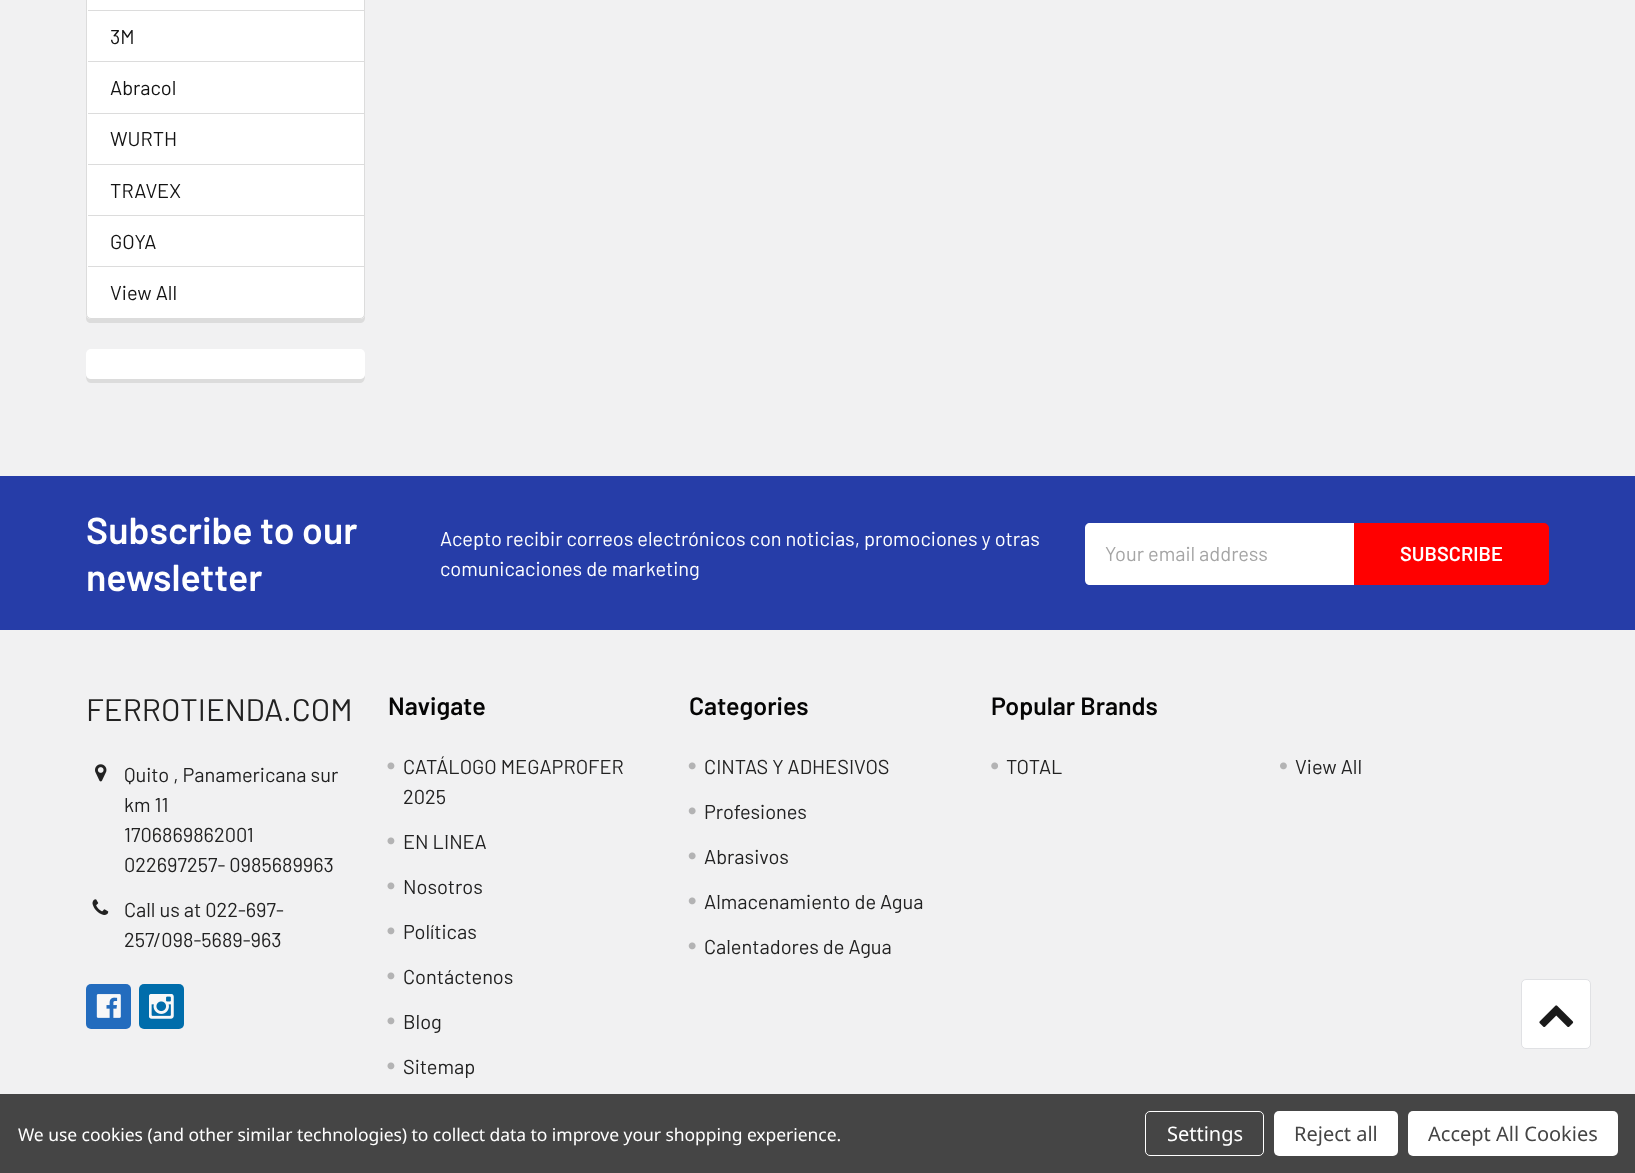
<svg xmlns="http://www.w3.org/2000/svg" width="1635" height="1173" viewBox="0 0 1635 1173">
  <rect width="100%" height="100%" fill="#f1f1f2"/>
  <path d="M86-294V318C86 321 88 323 91 323H360C363 323 365 321 365 318V314C365 317 363 319 360 319H91C88 319 86 317 86 314Z" fill="#dcdcdc"/>
  <rect x="86.5" y="-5.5" width="278" height="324" rx="4.5" fill="#fff" stroke="#dcdcdc"/>
  <path d="M88 10h276v1H88z" fill="#dcdcdc"/>
  <path d="M88 61h276v1H88z" fill="#dcdcdc"/>
  <path d="M88 113h276v1H88z" fill="#dcdcdc"/>
  <path d="M88 164h276v1H88z" fill="#dcdcdc"/>
  <path d="M88 215h276v1H88z" fill="#dcdcdc"/>
  <path d="M88 266h276v1H88z" fill="#dcdcdc"/>
  <path d="M86 356V371C86 375 85 383 91 383H360C365 383 365 377 365 374C365 377 363 379 360 379H91C88 379 86 377 86 374Z" fill="#dcdcdc"/>
  <rect x="86" y="349" width="279" height="30" rx="5" fill="#fff"/>
  <path d="M0 476h1635v154H0z" fill="#263da8"/>
  <path d="M1090 523H1354V585H1090C1087 585 1085 583 1085 580V528C1085 525 1087 523 1090 523Z" fill="#fff"/>
  <path d="M1354.5 523.5H1544C1546.5 523.5 1548.5 525.5 1548.5 528V580C1548.5 582.5 1546.5 584.5 1544 584.5H1354.5Z" fill="#f00" stroke="#f00"/>
  <image x="95" y="764" width="12" height="18" href="img/1.png"/>
  <image x="92" y="899" width="17" height="16" href="img/2.png"/>
  <rect x="86" y="984" width="45" height="45" rx="5" fill="#236cbe"/>
  <image x="96" y="994" width="25" height="24" href="img/3.png"/>
  <rect x="139" y="984" width="45" height="45" rx="5" fill="#006dab"/>
  <image x="149" y="994" width="25" height="25" href="img/4.png"/>
  <image x="387" y="762" width="8" height="8" href="img/5.png"/>
  <image x="387" y="837" width="8" height="8" href="img/5.png"/>
  <image x="387" y="882" width="8" height="8" href="img/5.png"/>
  <image x="387" y="927" width="8" height="8" href="img/5.png"/>
  <image x="387" y="972" width="8" height="8" href="img/5.png"/>
  <image x="387" y="1017" width="8" height="8" href="img/5.png"/>
  <image x="387" y="1062" width="8" height="8" href="img/5.png"/>
  <image x="688" y="762" width="8" height="8" href="img/6.png"/>
  <image x="688" y="807" width="8" height="8" href="img/6.png"/>
  <image x="688" y="852" width="8" height="8" href="img/6.png"/>
  <image x="688" y="897" width="8" height="8" href="img/6.png"/>
  <image x="688" y="942" width="8" height="8" href="img/6.png"/>
  <image x="991" y="762" width="7" height="8" href="img/7.png"/>
  <image x="1280" y="762" width="7" height="8" href="img/8.png"/>
  <rect x="1521.5" y="979.5" width="69" height="69" rx="4.5" fill="#fff" stroke="#e0e1e4"/>
  <image x="1539" y="1005" width="35" height="22" href="img/9.png"/>
  <path d="M0 1094h1635v79H0z" fill="#454545"/>
  <rect x="1145.5" y="1111.5" width="118" height="44" rx="4.5" fill="none" stroke="#fff"/>
  <rect x="1274" y="1111" width="124" height="45" rx="5" fill="#fff"/>
  <rect x="1408" y="1111" width="210" height="45" rx="5" fill="#fff"/>
  <g font-family="Barlow" font-size="20" fill="#131313">
    <text x="110" y="44">3M</text>
    <text x="110" y="95">Abracol</text>
    <text x="110" y="146">WURTH</text>
    <text x="110" y="198">TRAVEX</text>
    <text x="110" y="249">GOYA</text>
    <text x="110" y="300">View All</text>
  </g>
  <g font-family="Barlow" font-size="37.5" font-weight="600" fill="#fff">
    <text x="86" y="544">Subscribe to our</text>
    <text x="86" y="591">newsletter</text>
  </g>
  <g font-family="Barlow" font-size="20" fill="#fff">
    <text x="440" y="546">Acepto recibir correos electrónicos con noticias, promociones y otras</text>
    <text x="440" y="576">comunicaciones de marketing</text>
  </g>
  <text x="1105" y="561" font-family="Barlow" font-size="20" fill="#a5a5a5">Your email address</text>
  <text x="1400" y="561" font-family="Barlow" font-size="20" font-weight="600" fill="#fff">SUBSCRIBE</text>
  <text x="86" y="721" font-family="Barlow" font-size="31.25" fill="#222">FERROTIENDA.COM</text>
  <g font-family="Barlow" font-size="20" fill="#222">
    <text x="124" y="782">Quito , Panamericana sur</text>
    <text x="124" y="812">km 11</text>
    <text x="124" y="842">1706869862001</text>
    <text x="124" y="872">022697257- 0985689963</text>
    <text x="124" y="917">Call us at 022-697-</text>
    <text x="124" y="947">257/098-5689-963</text>
  </g>
  <text x="388" y="715" font-family="Barlow" font-size="25" font-weight="600" fill="#050505">Navigate</text>
  <g font-family="Barlow" font-size="20" fill="#222">
    <text x="403" y="774">CATÁLOGO MEGAPROFER</text>
    <text x="403" y="804">2025</text>
    <text x="403" y="849">EN LINEA</text>
    <text x="403" y="894">Nosotros</text>
    <text x="403" y="939">Políticas</text>
    <text x="403" y="984">Contáctenos</text>
    <text x="403" y="1029">Blog</text>
    <text x="403" y="1074">Sitemap</text>
  </g>
  <text x="689" y="715" font-family="Barlow" font-size="25" font-weight="600" fill="#050505">Categories</text>
  <g font-family="Barlow" font-size="20" fill="#222">
    <text x="704" y="774">CINTAS Y ADHESIVOS</text>
    <text x="704" y="819">Profesiones</text>
    <text x="704" y="864">Abrasivos</text>
    <text x="704" y="909">Almacenamiento de Agua</text>
    <text x="704" y="954">Calentadores de Agua</text>
  </g>
  <text x="991" y="715" font-family="Barlow" font-size="25" font-weight="600" fill="#050505">Popular Brands</text>
  <g font-family="Barlow" font-size="20" fill="#222">
    <text x="1006" y="774">TOTAL</text>
    <text x="1295" y="774">View All</text>
  </g>
  <text x="18" y="1141" font-family="Noto Sans" font-size="17.5" letter-spacing="-0.05" fill="#fff">We use cookies (and other similar technologies) to collect data to improve your shopping experience.</text>
  <text x="1167" y="1141" font-family="Noto Sans" font-size="20" fill="#fff">Settings</text>
  <g font-family="Noto Sans" font-size="20" fill="#454545">
    <text x="1294" y="1141">Reject all</text>
    <text x="1428" y="1141">Accept All Cookies</text>
  </g>
</svg>
